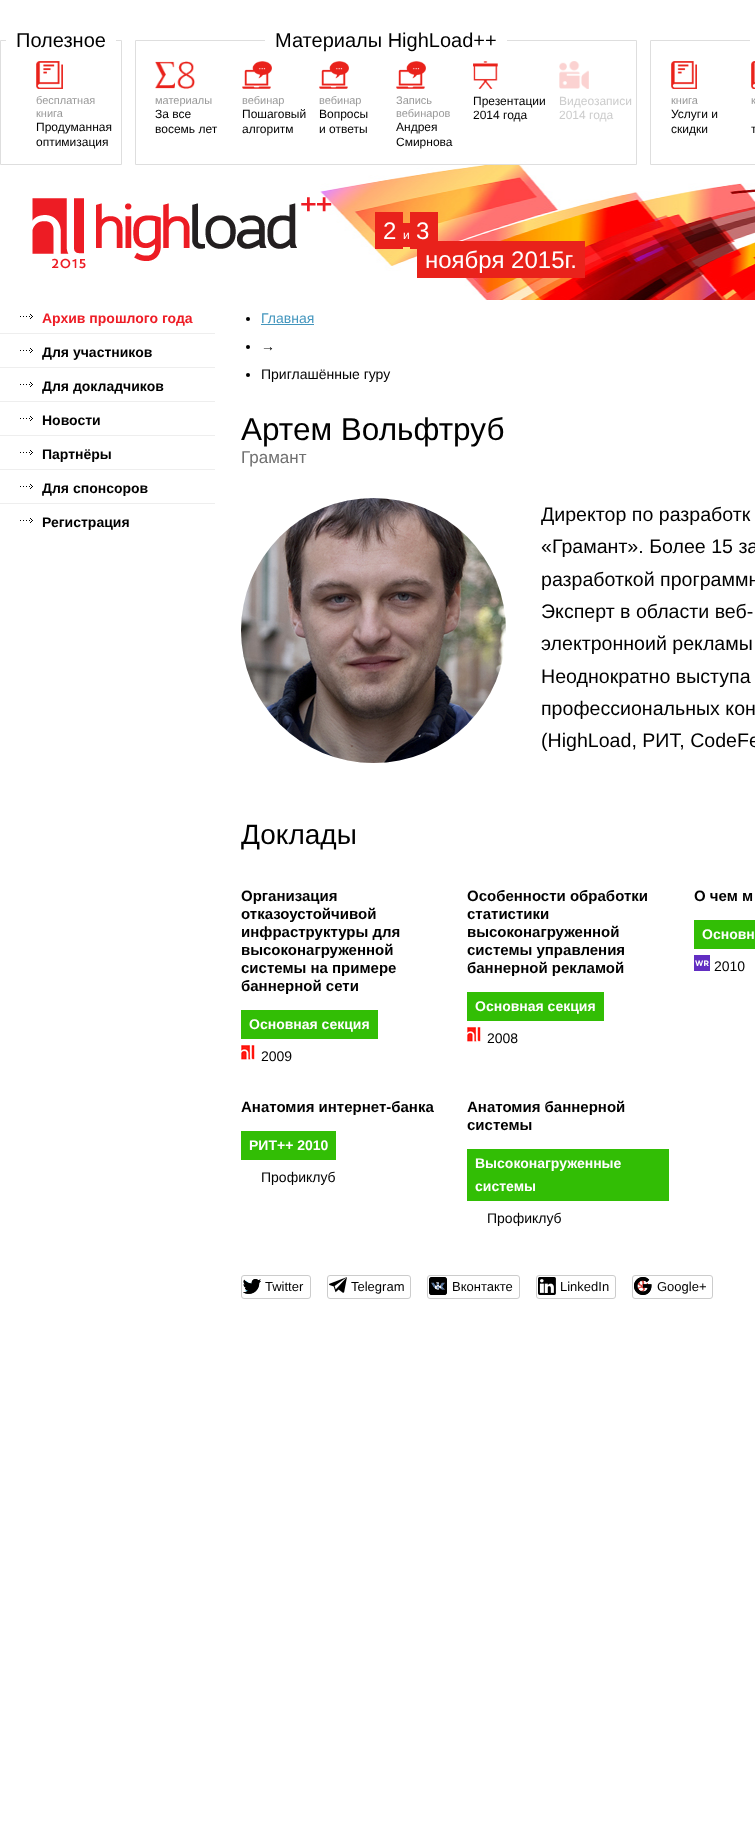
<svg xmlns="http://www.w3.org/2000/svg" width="755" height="1833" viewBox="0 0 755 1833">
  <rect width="100%" height="100%" fill="#fff"/>
  <image x="320" y="160" width="435" height="140" href="img/1.png"/>
  <path d="M0.5 40.5h121v124H0.5z" fill="none" stroke="#dedede"/>
  <path d="M6 40h110v1H6z" fill="#fff"/>
  <image x="36" y="61" width="27" height="28" href="img/2.png"/>
  <path d="M479 160h41v4H479z" fill="#fff"/>
  <path d="M135.5 40.5h501v124H135.5z" fill="none" stroke="#dedede"/>
  <path d="M265 40h242v1H265z" fill="#fff"/>
  <image x="155" y="61" width="40" height="28" href="img/3.png"/>
  <image x="242" y="61" width="30" height="28" href="img/4.png"/>
  <image x="319" y="61" width="30" height="28" href="img/4.png"/>
  <image x="396" y="61" width="30" height="28" href="img/4.png"/>
  <image x="473" y="61" width="25" height="28" href="img/5.png"/>
  <image x="559" y="61" width="30" height="28" href="img/6.png"/>
  <path d="M650.5 40.5h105v124H650.5z" fill="none" stroke="#dedede"/>
  <path d="M750 40h5v1H750z" fill="#fff"/>
  <image x="671" y="61" width="26" height="28" href="img/7.png"/>
  <image x="751" y="61" width="4" height="28" href="img/8.png"/>
  <image x="32" y="197" width="300" height="72" href="img/9.png"/>
  <path d="M375 212h28v37H375z" fill="#e9221b"/>
  <path d="M403 223h7v24H403z" fill="#e9221b"/>
  <path d="M410 212h28v37H410z" fill="#e9221b"/>
  <path d="M417 241h168v37H417z" fill="#e9221b"/>
  <image x="20" y="314" width="13" height="5" href="img/10.png"/>
  <image x="20" y="348" width="13" height="5" href="img/10.png"/>
  <path d="M0 333h215v1H0z" fill="#eee"/>
  <image x="20" y="382" width="13" height="5" href="img/10.png"/>
  <path d="M0 367h215v1H0z" fill="#eee"/>
  <image x="20" y="416" width="13" height="5" href="img/10.png"/>
  <path d="M0 401h215v1H0z" fill="#eee"/>
  <image x="20" y="450" width="13" height="5" href="img/10.png"/>
  <path d="M0 435h215v1H0z" fill="#eee"/>
  <image x="20" y="484" width="13" height="5" href="img/10.png"/>
  <path d="M0 469h215v1H0z" fill="#eee"/>
  <image x="20" y="518" width="13" height="5" href="img/10.png"/>
  <path d="M0 503h215v1H0z" fill="#eee"/>
  <circle cx="248" cy="319" r="2" fill="#000"/>
  <path d="M261 324h53v1H261z" fill="#4496be"/>
  <circle cx="248" cy="347" r="2" fill="#000"/>
  <circle cx="248" cy="375" r="2" fill="#000"/>
  <image x="241" y="498" width="265" height="265" href="img/11.png"/>
  <path d="M241 1010h137v29H241z" fill="#32be05"/>
  <image x="241" y="1045" width="14" height="15" href="img/12.png"/>
  <path d="M467 992h137v29H467z" fill="#32be05"/>
  <image x="467" y="1027" width="14" height="15" href="img/12.png"/>
  <path d="M694 920h61v29H694z" fill="#32be05"/>
  <image x="694" y="955" width="16" height="16" href="img/13.png"/>
  <path d="M241 1131h95v29H241z" fill="#32be05"/>
  <path d="M467 1149h202v52H467z" fill="#32be05"/>
  <rect x="241.5" y="1275.5" width="69" height="23" rx="2.5" fill="none" stroke="#ccc"/>
  <image x="243" y="1279" width="18" height="15" href="img/14.png"/>
  <image x="243" y="1279" width="18" height="15" href="img/15.png"/>
  <rect x="327.5" y="1275.5" width="83" height="23" rx="2.5" fill="none" stroke="#ccc"/>
  <image x="329" y="1277" width="18" height="16" href="img/16.png"/>
  <rect x="427.5" y="1275.5" width="92" height="23" rx="2.5" fill="none" stroke="#ccc"/>
  <image x="429" y="1277" width="18" height="18" href="img/17.png"/>
  <image x="429" y="1277" width="18" height="18" href="img/18.png"/>
  <rect x="536.5" y="1275.5" width="79" height="23" rx="2.5" fill="none" stroke="#ccc"/>
  <image x="538" y="1277" width="18" height="18" href="img/19.png"/>
  <rect x="632.5" y="1275.5" width="80" height="23" rx="2.5" fill="none" stroke="#ccc"/>
  <image x="634" y="1277" width="18" height="18" href="img/20.png"/>
  <image x="634" y="1277" width="18" height="18" href="img/21.png"/>
  <text x="16" y="47" font-family="Liberation Sans" font-size="20" fill="#000">Полезное</text>
  <g font-family="Liberation Sans" font-size="11" fill="#999">
    <text x="36" y="104">бесплатная</text>
    <text x="36" y="117">книга</text>
  </g>
  <g font-family="Liberation Sans" font-size="12" fill="#000">
    <text x="36" y="131">Продуманная</text>
    <text x="36" y="146">оптимизация</text>
  </g>
  <text x="275" y="47" font-family="Liberation Sans" font-size="20" fill="#000">Материалы HighLoad++</text>
  <text x="155" y="104" font-family="Liberation Sans" font-size="11" fill="#999">материалы</text>
  <g font-family="Liberation Sans" font-size="12" fill="#000">
    <text x="155" y="118">За все</text>
    <text x="155" y="133">восемь лет</text>
  </g>
  <text x="242" y="104" font-family="Liberation Sans" font-size="11" fill="#999">вебинар</text>
  <g font-family="Liberation Sans" font-size="12" fill="#000">
    <text x="242" y="118">Пошаговый</text>
    <text x="242" y="133">алгоритм</text>
  </g>
  <text x="319" y="104" font-family="Liberation Sans" font-size="11" fill="#999">вебинар</text>
  <g font-family="Liberation Sans" font-size="12" fill="#000">
    <text x="319" y="118">Вопросы</text>
    <text x="319" y="133">и ответы</text>
  </g>
  <g font-family="Liberation Sans" font-size="11" fill="#999">
    <text x="396" y="104">Запись</text>
    <text x="396" y="117">вебинаров</text>
  </g>
  <g font-family="Liberation Sans" font-size="12" fill="#000">
    <text x="396" y="131">Андрея</text>
    <text x="396" y="146">Смирнова</text>
    <text x="473" y="105">Презентации</text>
    <text x="473" y="119">2014 года</text>
  </g>
  <g font-family="Liberation Sans" font-size="12" fill="#ccc">
    <text x="559" y="105">Видеозаписи</text>
    <text x="559" y="119">2014 года</text>
  </g>
  <text x="671" y="104" font-family="Liberation Sans" font-size="11" fill="#999">книга</text>
  <g font-family="Liberation Sans" font-size="12" fill="#000">
    <text x="671" y="118">Услуги и</text>
    <text x="671" y="133">скидки</text>
  </g>
  <text x="751" y="104" font-family="Liberation Sans" font-size="11" fill="#999">к</text>
  <text x="751" y="133" font-family="Liberation Sans" font-size="12" fill="#000">т</text>
  <text x="383" y="239" font-family="Liberation Sans" font-size="24" fill="#fff">2</text>
  <text x="403" y="239" font-family="Liberation Sans" font-size="12" fill="#fff">и</text>
  <g font-family="Liberation Sans" font-size="24" fill="#fff">
    <text x="416" y="239">3</text>
    <text x="425" y="268">ноября 2015г.</text>
  </g>
  <text x="42" y="323" font-family="Liberation Sans" font-size="14" font-weight="bold" fill="#ee1c25">Архив прошлого года</text>
  <g font-family="Liberation Sans" font-size="14" font-weight="bold" fill="#000">
    <text x="42" y="357">Для участников</text>
    <text x="42" y="391">Для докладчиков</text>
    <text x="42" y="425">Новости</text>
    <text x="42" y="459">Партнёры</text>
    <text x="42" y="493">Для спонсоров</text>
    <text x="42" y="527">Регистрация</text>
  </g>
  <text x="261" y="323" font-family="Liberation Sans" font-size="14" fill="#4496be">Главная</text>
  <g font-family="Liberation Sans" font-size="14" fill="#000">
    <text x="261" y="351">→</text>
    <text x="261" y="379">Приглашённые гуру</text>
  </g>
  <text x="241" y="440" font-family="Liberation Sans" font-size="31.5" fill="#000">Артем Вольфтруб</text>
  <text x="241" y="463" font-family="Liberation Sans" font-size="17" fill="#707070">Грамант</text>
  <g font-family="Liberation Sans" font-size="19.6" fill="#000">
    <text x="541" y="521">Директор по разработк</text>
    <text x="541" y="553">«Грамант». Более 15 за</text>
    <text x="541" y="586">разработкой программн</text>
    <text x="541" y="618">Эксперт в области веб-</text>
    <text x="541" y="650">электронноий рекламы</text>
    <text x="541" y="683">Неоднократно выступа</text>
    <text x="541" y="715">профессиональных кон</text>
    <text x="541" y="747">(HighLoad, РИТ, CodeFe</text>
  </g>
  <text x="241" y="844" font-family="Liberation Sans" font-size="28" fill="#000">Доклады</text>
  <g font-family="Liberation Sans" font-size="15" font-weight="bold" fill="#000">
    <text x="241" y="901">Организация</text>
    <text x="241" y="919">отказоустойчивой</text>
    <text x="241" y="937">инфраструктуры для</text>
    <text x="241" y="955">высоконагруженной</text>
    <text x="241" y="973">системы на примере</text>
    <text x="241" y="991">баннерной сети</text>
  </g>
  <text x="249" y="1029" font-family="Liberation Sans" font-size="14" font-weight="bold" fill="#fff">Основная секция</text>
  <text x="261" y="1061" font-family="Liberation Sans" font-size="14" fill="#000">2009</text>
  <g font-family="Liberation Sans" font-size="15" font-weight="bold" fill="#000">
    <text x="467" y="901">Особенности обработки</text>
    <text x="467" y="919">статистики</text>
    <text x="467" y="937">высоконагруженной</text>
    <text x="467" y="955">системы управления</text>
    <text x="467" y="973">баннерной рекламой</text>
  </g>
  <text x="475" y="1011" font-family="Liberation Sans" font-size="14" font-weight="bold" fill="#fff">Основная секция</text>
  <text x="487" y="1043" font-family="Liberation Sans" font-size="14" fill="#000">2008</text>
  <text x="694" y="901" font-family="Liberation Sans" font-size="15" font-weight="bold" fill="#000">О чем м</text>
  <text x="702" y="939" font-family="Liberation Sans" font-size="14" font-weight="bold" fill="#fff">Основн</text>
  <text x="714" y="971" font-family="Liberation Sans" font-size="14" fill="#000">2010</text>
  <text x="241" y="1112" font-family="Liberation Sans" font-size="15" font-weight="bold" fill="#000">Анатомия интернет-банка</text>
  <text x="249" y="1150" font-family="Liberation Sans" font-size="14" font-weight="bold" fill="#fff">РИТ++ 2010</text>
  <text x="261" y="1182" font-family="Liberation Sans" font-size="14" fill="#000">Профиклуб</text>
  <g font-family="Liberation Sans" font-size="15" font-weight="bold" fill="#000">
    <text x="467" y="1112">Анатомия баннерной</text>
    <text x="467" y="1130">системы</text>
  </g>
  <g font-family="Liberation Sans" font-size="14" font-weight="bold" fill="#fff">
    <text x="475" y="1168">Высоконагруженные</text>
    <text x="475" y="1191">системы</text>
  </g>
  <text x="487" y="1223" font-family="Liberation Sans" font-size="14" fill="#000">Профиклуб</text>
  <g font-family="Liberation Sans" font-size="13" fill="#000">
    <text x="265" y="1291">Twitter</text>
    <text x="351" y="1291">Telegram</text>
    <text x="452" y="1291">Вконтакте</text>
    <text x="560" y="1291">LinkedIn</text>
    <text x="657" y="1291">Google+</text>
  </g>
</svg>
